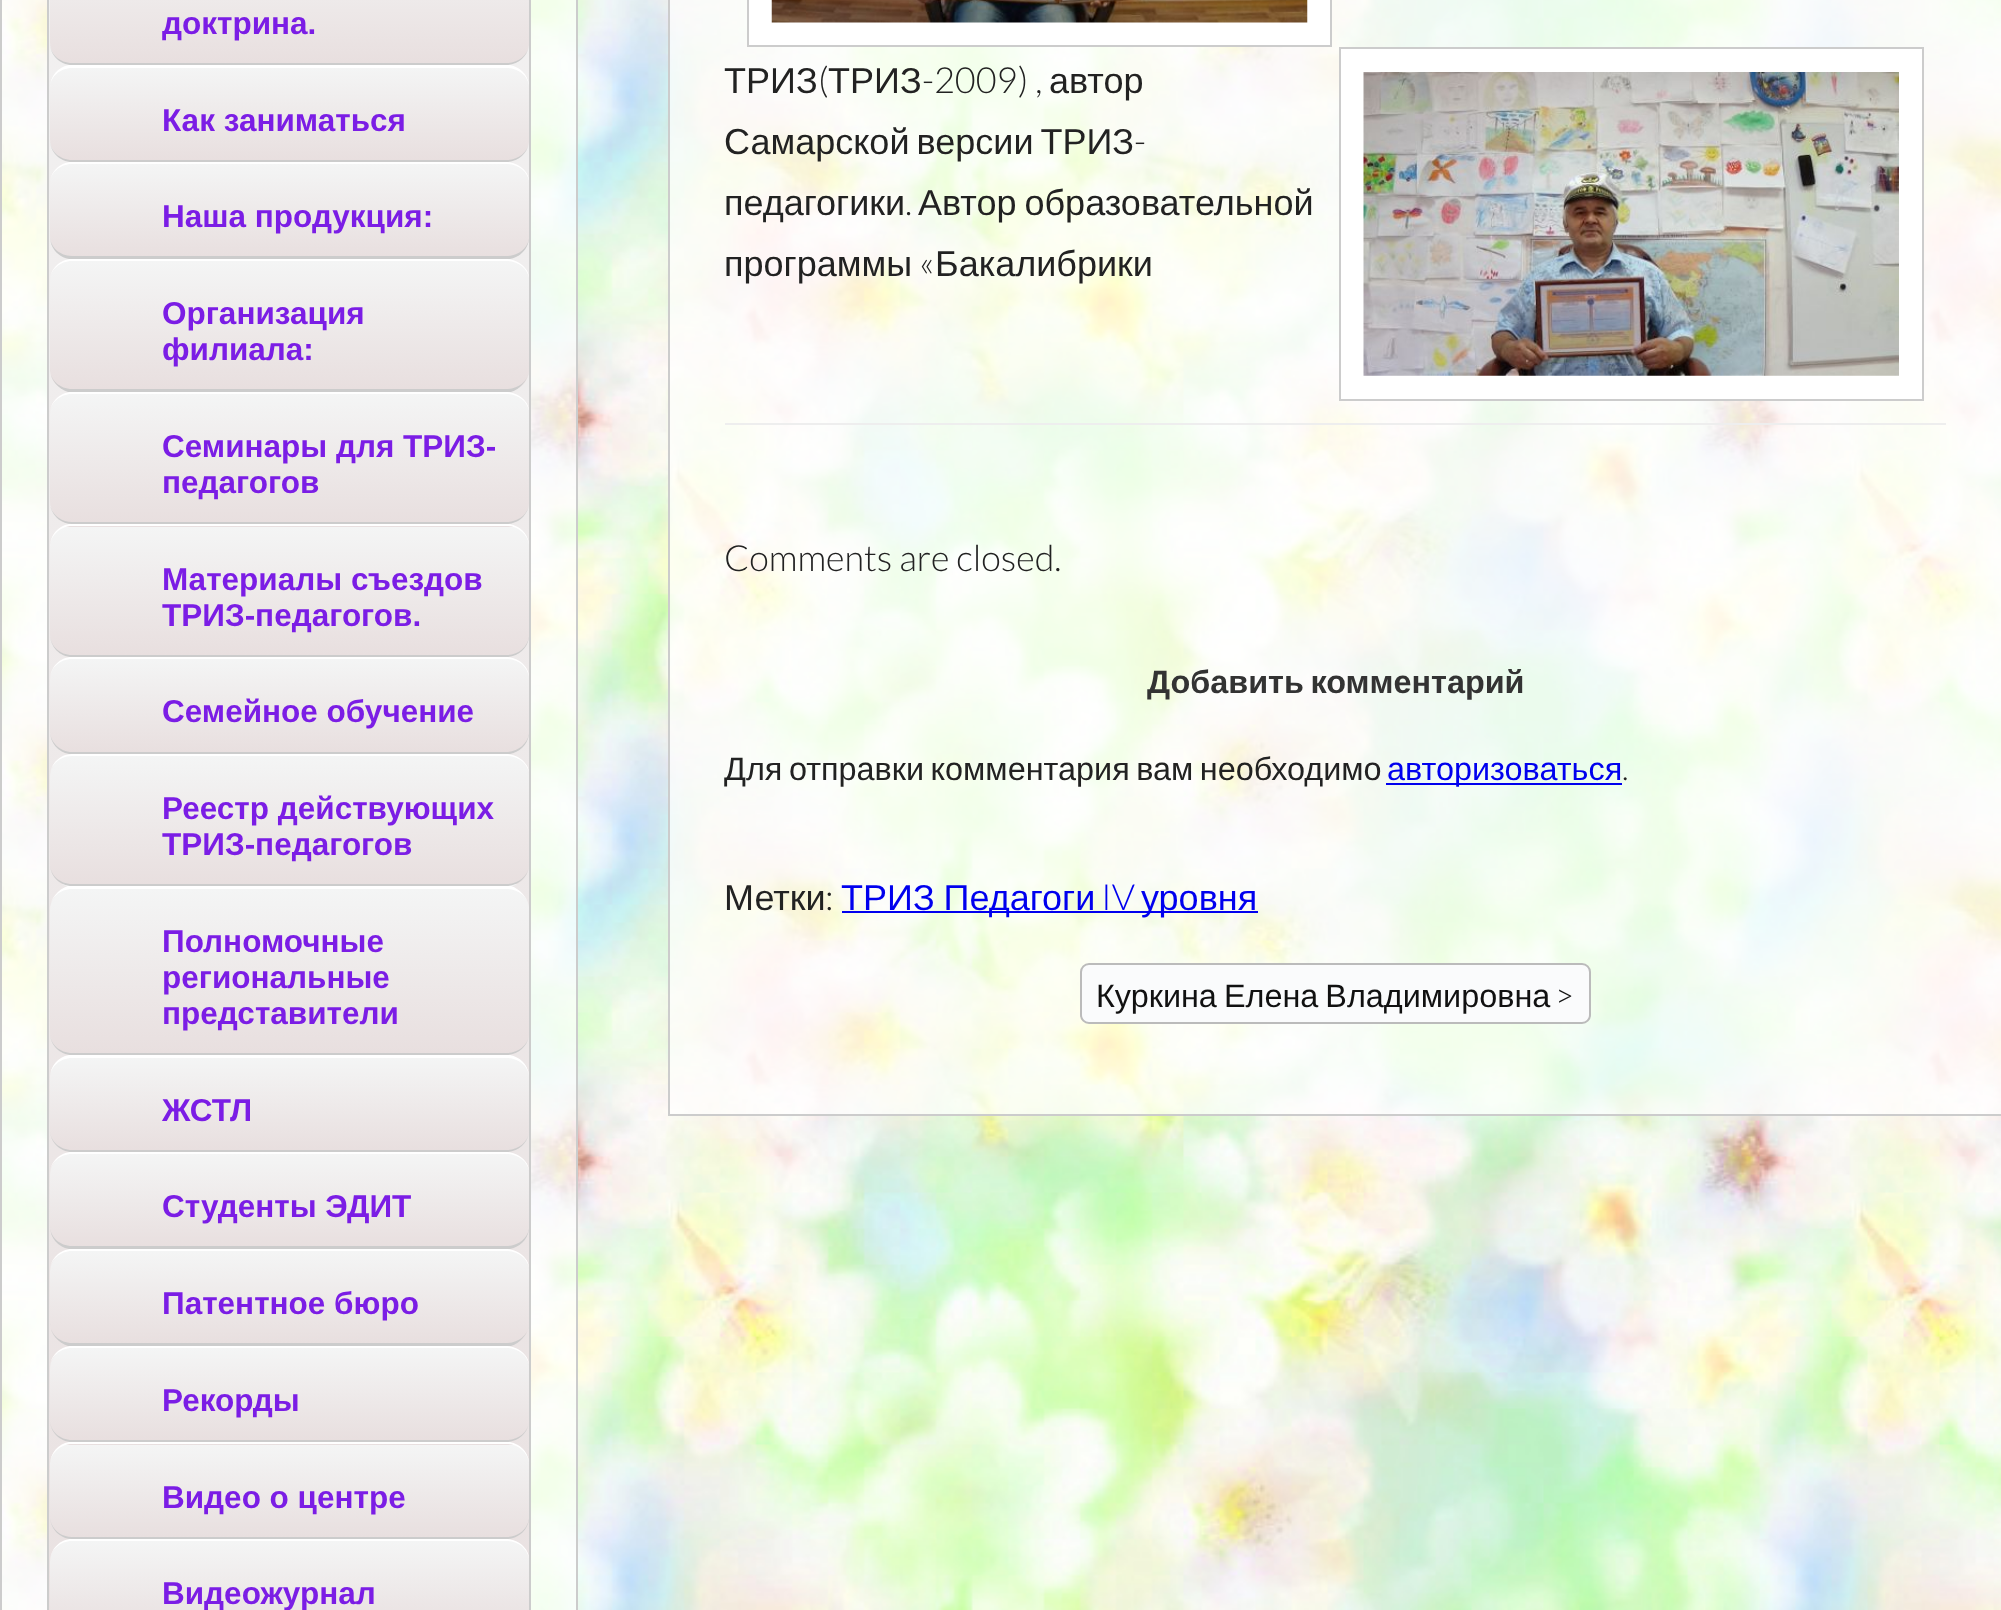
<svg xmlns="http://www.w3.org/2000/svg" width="2001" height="1610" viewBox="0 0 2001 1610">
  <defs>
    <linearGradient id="g1" gradientUnits="userSpaceOnUse" x1="289" y1="-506" x2="289" y2="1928"><stop offset="0" stop-color="#f4f5f5"/><stop offset="1" stop-color="#e8dfdf"/></linearGradient>
    <linearGradient id="g2" gradientUnits="userSpaceOnUse" x1="289" y1="-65" x2="289" y2="63"><stop offset="0" stop-color="#f4f5f5"/><stop offset="1" stop-color="#e8dfdf"/></linearGradient>
    <linearGradient id="g3" gradientUnits="userSpaceOnUse" x1="289" y1="67" x2="289" y2="160"><stop offset="0" stop-color="#f4f5f5"/><stop offset="1" stop-color="#e8dfdf"/></linearGradient>
    <linearGradient id="g4" gradientUnits="userSpaceOnUse" x1="289" y1="164" x2="289" y2="257"><stop offset="0" stop-color="#f4f5f5"/><stop offset="1" stop-color="#e8dfdf"/></linearGradient>
    <linearGradient id="g5" gradientUnits="userSpaceOnUse" x1="289" y1="261" x2="289" y2="389"><stop offset="0" stop-color="#f4f5f5"/><stop offset="1" stop-color="#e8dfdf"/></linearGradient>
    <linearGradient id="g6" gradientUnits="userSpaceOnUse" x1="289" y1="394" x2="289" y2="522"><stop offset="0" stop-color="#f4f5f5"/><stop offset="1" stop-color="#e8dfdf"/></linearGradient>
    <linearGradient id="g7" gradientUnits="userSpaceOnUse" x1="289" y1="398" x2="289" y2="527"><stop offset="0" stop-color="#f4f5f5"/><stop offset="1" stop-color="#e8dfdf"/></linearGradient>
    <linearGradient id="g8" gradientUnits="userSpaceOnUse" x1="289" y1="527" x2="289" y2="655"><stop offset="0" stop-color="#f4f5f5"/><stop offset="1" stop-color="#e8dfdf"/></linearGradient>
    <linearGradient id="g9" gradientUnits="userSpaceOnUse" x1="289" y1="659" x2="289" y2="752"><stop offset="0" stop-color="#f4f5f5"/><stop offset="1" stop-color="#e8dfdf"/></linearGradient>
    <linearGradient id="g10" gradientUnits="userSpaceOnUse" x1="289" y1="756" x2="289" y2="884"><stop offset="0" stop-color="#f4f5f5"/><stop offset="1" stop-color="#e8dfdf"/></linearGradient>
    <linearGradient id="g11" gradientUnits="userSpaceOnUse" x1="289" y1="884" x2="289" y2="1013"><stop offset="0" stop-color="#f4f5f5"/><stop offset="1" stop-color="#e8dfdf"/></linearGradient>
    <linearGradient id="g12" gradientUnits="userSpaceOnUse" x1="289" y1="889" x2="289" y2="1053"><stop offset="0" stop-color="#f4f5f5"/><stop offset="1" stop-color="#e8dfdf"/></linearGradient>
    <linearGradient id="g13" gradientUnits="userSpaceOnUse" x1="289" y1="1058" x2="289" y2="1150"><stop offset="0" stop-color="#f4f5f5"/><stop offset="1" stop-color="#e8dfdf"/></linearGradient>
    <linearGradient id="g14" gradientUnits="userSpaceOnUse" x1="289" y1="1154" x2="289" y2="1247"><stop offset="0" stop-color="#f4f5f5"/><stop offset="1" stop-color="#e8dfdf"/></linearGradient>
    <linearGradient id="g15" gradientUnits="userSpaceOnUse" x1="289" y1="1251" x2="289" y2="1343"><stop offset="0" stop-color="#f4f5f5"/><stop offset="1" stop-color="#e8dfdf"/></linearGradient>
    <linearGradient id="g16" gradientUnits="userSpaceOnUse" x1="289" y1="1348" x2="289" y2="1440"><stop offset="0" stop-color="#f4f5f5"/><stop offset="1" stop-color="#e8dfdf"/></linearGradient>
    <linearGradient id="g17" gradientUnits="userSpaceOnUse" x1="289" y1="1352" x2="289" y2="1445"><stop offset="0" stop-color="#f4f5f5"/><stop offset="1" stop-color="#e8dfdf"/></linearGradient>
    <linearGradient id="g18" gradientUnits="userSpaceOnUse" x1="289" y1="1445" x2="289" y2="1537"><stop offset="0" stop-color="#f4f5f5"/><stop offset="1" stop-color="#e8dfdf"/></linearGradient>
    <linearGradient id="g19" gradientUnits="userSpaceOnUse" x1="289" y1="1541" x2="289" y2="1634"><stop offset="0" stop-color="#f4f5f5"/><stop offset="1" stop-color="#e8dfdf"/></linearGradient>
  </defs>
  <rect width="100%" height="100%" fill="#fff"/>
  <image x="2" y="0" width="1999" height="1610" href="img/1.png"/>
  <path d="M1 -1h576v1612H1z" fill="#ffffffb3" stroke="#ccc" stroke-width="2"/>
  <path d="M49 0h480v1610H49z" fill="url(#g1)"/>
  <path d="M48 -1h482v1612H48z" fill="none" stroke="#ccc" stroke-width="2"/>
  <path d="M50-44V42C50 51 56 59 64 63H515C522 60 528 53 529 45V-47C528-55 522-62 515-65H64C56-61 50-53 50-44Z" fill="url(#g2)"/>
  <path d="M529 46C527 56 518 63 506 63H72C60 63 50 54 50 43C50 55 60 65 72 65H506C518 65 527 57 529 46Z" fill="#ccc"/>
  <path d="M50 88V139C50 148 56 156 64 160H515C522 157 528 150 529 142V85C528 77 523 71 517 68H62C55 72 50 79 50 88Z" fill="url(#g3)"/>
  <path d="M529 85V84C527 74 520 67 510 65H69C58 67 50 76 50 88C50 77 60 68 72 68H506C518 68 527 75 529 85Z" fill="#fff"/>
  <path d="M529 143C527 153 518 160 506 160H72C60 160 50 151 50 140C50 152 60 162 72 162H506C518 162 527 154 529 143Z" fill="#ccc"/>
  <path d="M50 185V236C50 245 56 253 64 257H515C522 254 528 247 529 239V182C528 174 522 167 515 164H64C56 168 50 176 50 185Z" fill="url(#g4)"/>
  <path d="M72 162C60 162 50 172 50 184C50 173 60 164 72 164H506C518 164 527 171 529 181C529 170 516 162 506 162Z" fill="#fff"/>
  <path d="M529 239C527 249 518 256 506 256H72C60 256 50 247 50 236C50 248 58 257 69 259H510C520 257 527 250 529 240Z" fill="#ccc"/>
  <path d="M50 282V369C50 378 55 385 62 389H517C523 386 528 380 529 372V279C528 271 522 264 515 261H64C56 265 50 273 50 282Z" fill="url(#g5)"/>
  <path d="M72 259C60 259 50 269 50 281C50 270 60 261 72 261H506C518 261 527 268 529 278C529 267 516 259 506 259Z" fill="#fff"/>
  <path d="M529 372C527 382 518 389 506 389H72C60 389 50 380 50 369C50 379 58 389 68 392H511C520 389 527 381 529 372Z" fill="#ccc"/>
  <path d="M50 415V501C50 510 56 518 64 522H515C522 519 528 512 529 504V412C528 404 522 397 515 394H64C56 398 50 406 50 415Z" fill="url(#g6)"/>
  <path d="M72 392C60 392 50 402 50 414C50 403 60 394 72 394H506C518 394 527 401 529 411C529 400 516 392 506 392Z" fill="#fff"/>
  <path d="M529 505C527 515 518 522 506 522H72C60 522 50 513 50 502C50 514 60 524 72 524H506C518 524 527 516 529 505Z" fill="#ccc"/>
  <path d="M73 524H506C510 524 514 525 517 527H62C65 525 69 524 73 524Z" fill="url(#g7)"/>
  <path d="M50 547V634C50 643 56 651 64 655H515C522 652 528 645 529 637V544C528 536 523 530 517 527H62C55 531 50 538 50 547Z" fill="url(#g8)"/>
  <path d="M529 544V543C527 533 520 526 510 524H69C58 526 50 535 50 547C50 536 60 526 72 526H506C518 526 527 534 529 544Z" fill="#fff"/>
  <path d="M529 637C527 648 518 655 506 655H72C60 655 50 646 50 634C50 647 60 657 72 657H506C518 657 527 649 529 638Z" fill="#ccc"/>
  <path d="M50 680V731C50 740 56 748 64 752H515C522 749 528 742 529 734V677C528 669 522 662 515 659H64C56 663 50 671 50 680Z" fill="url(#g9)"/>
  <path d="M72 657C60 657 50 667 50 680C50 668 60 659 72 659H506C518 659 527 666 529 677C529 665 516 657 506 657Z" fill="#fff"/>
  <path d="M529 734C527 744 518 752 506 752H72C60 752 50 742 50 731C50 743 58 752 69 754H510C520 752 527 745 529 735Z" fill="#ccc"/>
  <path d="M50 777V864C50 873 55 880 62 884H517C523 881 528 875 529 867V774C528 766 522 759 515 756H64C56 760 50 768 50 777Z" fill="url(#g10)"/>
  <path d="M517 884C514 886 510 887 506 887H73C69 887 65 886 62 884Z" fill="url(#g11)"/>
  <path d="M72 754C60 754 50 764 50 776C50 765 60 756 72 756H506C518 756 527 763 529 773C529 762 516 754 506 754Z" fill="#fff"/>
  <path d="M529 867C527 877 518 884 506 884H72C60 884 50 875 50 864C50 876 60 886 72 886H506C518 886 527 878 529 867Z" fill="#ccc"/>
  <path d="M50 910V1032C50 1041 56 1049 64 1053H515C522 1050 528 1043 529 1035V907C528 899 522 892 515 889H64C56 893 50 901 50 910Z" fill="url(#g12)"/>
  <path d="M529 906C527 897 520 889 511 886H68C58 889 50 899 50 909C50 898 60 889 72 889H506C518 889 527 896 529 906Z" fill="#fff"/>
  <path d="M529 1036C527 1046 518 1053 506 1053H72C60 1053 50 1044 50 1033C50 1045 60 1055 72 1055H506C518 1055 527 1047 529 1036Z" fill="#ccc"/>
  <path d="M50 1078V1129C50 1138 56 1146 64 1150H515C522 1147 528 1140 529 1132V1075C528 1067 523 1061 517 1058H62C55 1062 50 1069 50 1078Z" fill="url(#g13)"/>
  <path d="M529 1075V1074C527 1064 520 1057 510 1055H69C58 1057 50 1066 50 1078C50 1067 60 1058 72 1058H506C518 1058 527 1065 529 1075Z" fill="#fff"/>
  <path d="M529 1133C527 1143 518 1150 506 1150H72C60 1150 50 1141 50 1130C50 1142 60 1152 72 1152H506C518 1152 527 1144 529 1133Z" fill="#ccc"/>
  <path d="M50 1175V1226C50 1235 56 1243 64 1247H515C522 1244 528 1237 529 1229V1172C528 1164 522 1157 515 1154H64C56 1158 50 1166 50 1175Z" fill="url(#g14)"/>
  <path d="M72 1152C60 1152 50 1162 50 1174C50 1163 60 1154 72 1154H506C518 1154 527 1161 529 1171C529 1160 516 1152 506 1152Z" fill="#fff"/>
  <path d="M529 1229C527 1239 518 1246 506 1246H72C60 1246 50 1237 50 1226C50 1238 58 1247 69 1249H510C520 1247 527 1240 529 1230Z" fill="#ccc"/>
  <path d="M50 1272V1323C50 1332 55 1339 62 1343H517C523 1340 528 1334 529 1326V1269C528 1261 522 1254 515 1251H64C56 1255 50 1263 50 1272Z" fill="url(#g15)"/>
  <path d="M72 1249C60 1249 50 1259 50 1271C50 1260 60 1251 72 1251H506C518 1251 527 1258 529 1268C529 1257 516 1249 506 1249Z" fill="#fff"/>
  <path d="M529 1326C527 1336 518 1343 506 1343H72C60 1343 50 1334 50 1323C50 1333 58 1343 68 1346H511C520 1343 527 1335 529 1326Z" fill="#ccc"/>
  <path d="M50 1369V1419C50 1428 56 1436 64 1440H515C522 1437 528 1430 529 1422V1366C528 1358 522 1351 515 1348H64C56 1352 50 1360 50 1369Z" fill="url(#g16)"/>
  <path d="M72 1346C60 1346 50 1356 50 1368C50 1357 60 1348 72 1348H506C518 1348 527 1355 529 1365C529 1354 516 1346 506 1346Z" fill="#fff"/>
  <path d="M529 1423C527 1433 518 1440 506 1440H72C60 1440 50 1431 50 1420C50 1432 60 1442 72 1442H506C518 1442 527 1434 529 1423Z" fill="#ccc"/>
  <path d="M73 1442H506C510 1442 514 1443 517 1445H62C65 1443 69 1442 73 1442Z" fill="url(#g17)"/>
  <path d="M50 1465V1516C50 1525 56 1533 64 1537H515C522 1534 528 1527 529 1519V1462C528 1454 523 1448 517 1445H62C55 1449 50 1456 50 1465Z" fill="url(#g18)"/>
  <path d="M529 1462V1461C527 1451 520 1444 510 1442H69C58 1444 50 1453 50 1465C50 1454 60 1444 72 1444H506C518 1444 527 1452 529 1462Z" fill="#fff"/>
  <path d="M529 1519C527 1530 518 1537 506 1537H72C60 1537 50 1528 50 1516C50 1529 60 1539 72 1539H506C518 1539 527 1531 529 1520Z" fill="#ccc"/>
  <path d="M50 1562V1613C50 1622 56 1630 64 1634H515C522 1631 528 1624 529 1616V1559C528 1551 522 1544 515 1541H64C56 1545 50 1553 50 1562Z" fill="url(#g19)"/>
  <path d="M72 1539C60 1539 50 1549 50 1562C50 1550 60 1541 72 1541H506C518 1541 527 1548 529 1559C529 1547 516 1539 506 1539Z" fill="#fff"/>
  <path d="M669 -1h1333v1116H669z" fill="#ffffffb3" stroke="#ccc" stroke-width="2"/>
  <path d="M725 423h1221v2H725z" fill="#eee"/>
  <path d="M748 -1h583v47H748z" fill="#fff" stroke="#ccc" stroke-width="2"/>
  <image x="771" y="0" width="537" height="23" href="img/2.png"/>
  <path d="M1340 48h583v352H1340z" fill="#fff" stroke="#ccc" stroke-width="2"/>
  <image x="1363" y="72" width="536" height="304" href="img/3.png"/>
  <path d="M1386 783h236v2H1386z" fill="#00e"/>
  <path d="M842 911h416v2H842z" fill="#00e"/>
  <rect x="1081" y="964" width="509" height="59" rx="8" fill="#fafbfc" stroke="#bbb" stroke-width="2"/>
  <g font-family="Liberation Sans" font-size="31.5" font-weight="bold" fill="#7b1de5">
    <text x="162" y="34">доктрина.</text>
    <text x="162" y="131">Как заниматься</text>
    <text x="162" y="227">Наша продукция:</text>
    <text x="162" y="324">Организация</text>
    <text x="162" y="360">филиала:</text>
    <text x="162" y="457">Семинары для ТРИЗ-</text>
    <text x="162" y="493">педагогов</text>
    <text x="162" y="590">Материалы съездов</text>
    <text x="162" y="626">ТРИЗ-педагогов.</text>
    <text x="162" y="722">Семейное обучение</text>
    <text x="162" y="819">Реестр действующих</text>
    <text x="162" y="855">ТРИЗ-педагогов</text>
    <text x="162" y="952">Полномочные</text>
    <text x="162" y="988">региональные</text>
    <text x="162" y="1024">представители</text>
    <text x="162" y="1121">ЖСТЛ</text>
    <text x="162" y="1217">Студенты ЭДИТ</text>
    <text x="162" y="1314">Патентное бюро</text>
    <text x="162" y="1411">Рекорды</text>
    <text x="162" y="1508">Видео о центре</text>
    <text x="162" y="1604">Видеожурнал</text>
  </g>
  <text x="724" y="93" font-family="Liberation Sans" font-size="36" fill="#222">ТРИЗ</text>
  <text x="818" y="93" font-family="Lato" font-size="36" font-weight="300" fill="#222">(</text>
  <text x="828" y="93" font-family="Liberation Sans" font-size="36" fill="#222">ТРИЗ</text>
  <text x="922" y="93" font-family="Lato" font-size="36" font-weight="300" fill="#222">-2009) ,</text>
  <g font-family="Liberation Sans" font-size="36" fill="#222">
    <text x="1049" y="93">автор</text>
    <text x="724" y="154" word-spacing="-3">Самарской версии ТРИЗ</text>
  </g>
  <text x="1134" y="154" font-family="Lato" font-size="36" font-weight="300" fill="#222">-</text>
  <text x="724" y="215" font-family="Liberation Sans" font-size="36" fill="#222">педагогики</text>
  <text x="905" y="215" font-family="Lato" font-size="36" font-weight="300" fill="#222">.</text>
  <g font-family="Liberation Sans" font-size="36" fill="#222">
    <text x="918" y="215" word-spacing="-2">Автор образовательной</text>
    <text x="724" y="276">программы</text>
  </g>
  <text x="919" y="276" font-family="Lato" font-size="36" font-weight="300" fill="#222">«</text>
  <text x="935" y="276" font-family="Liberation Sans" font-size="36" fill="#222">Бакалибрики</text>
  <text x="724" y="571" font-family="Lato" font-size="36" font-weight="300" fill="#222">Comments are closed.</text>
  <text x="1147" y="693" word-spacing="-2.5" font-family="Liberation Sans" font-size="32.4" font-weight="bold" fill="#333">Добавить комментарий</text>
  <text x="724" y="780" word-spacing="-2.5" font-family="Liberation Sans" font-size="32.4" fill="#222">Для отправки комментария вам необходимо</text>
  <text x="1387" y="780" font-family="Liberation Sans" font-size="32.4" fill="#00e">авторизоваться</text>
  <text x="1622" y="780" font-family="Lato" font-size="32.4" font-weight="300" fill="#222">.</text>
  <text x="724" y="910" font-family="Liberation Sans" font-size="36" fill="#222">Метки</text>
  <text x="825" y="910" font-family="Lato" font-size="36" font-weight="300" fill="#222">:</text>
  <text x="841" y="910" word-spacing="-1" font-family="Liberation Sans" font-size="36" fill="#00e">ТРИЗ Педагоги</text>
  <text x="1101" y="910" font-family="Lato" font-size="36" font-weight="300" fill="#00e">IV</text>
  <text x="1141" y="910" font-family="Liberation Sans" font-size="36" fill="#00e">уровня</text>
  <text x="1096" y="1007" word-spacing="-2" font-family="Liberation Sans" font-size="32.4" fill="#111">Куркина Елена Владимировна</text>
  <text x="1555" y="1007" font-family="Lato" font-size="32.4" font-weight="300" fill="#111">&gt;</text>
</svg>
